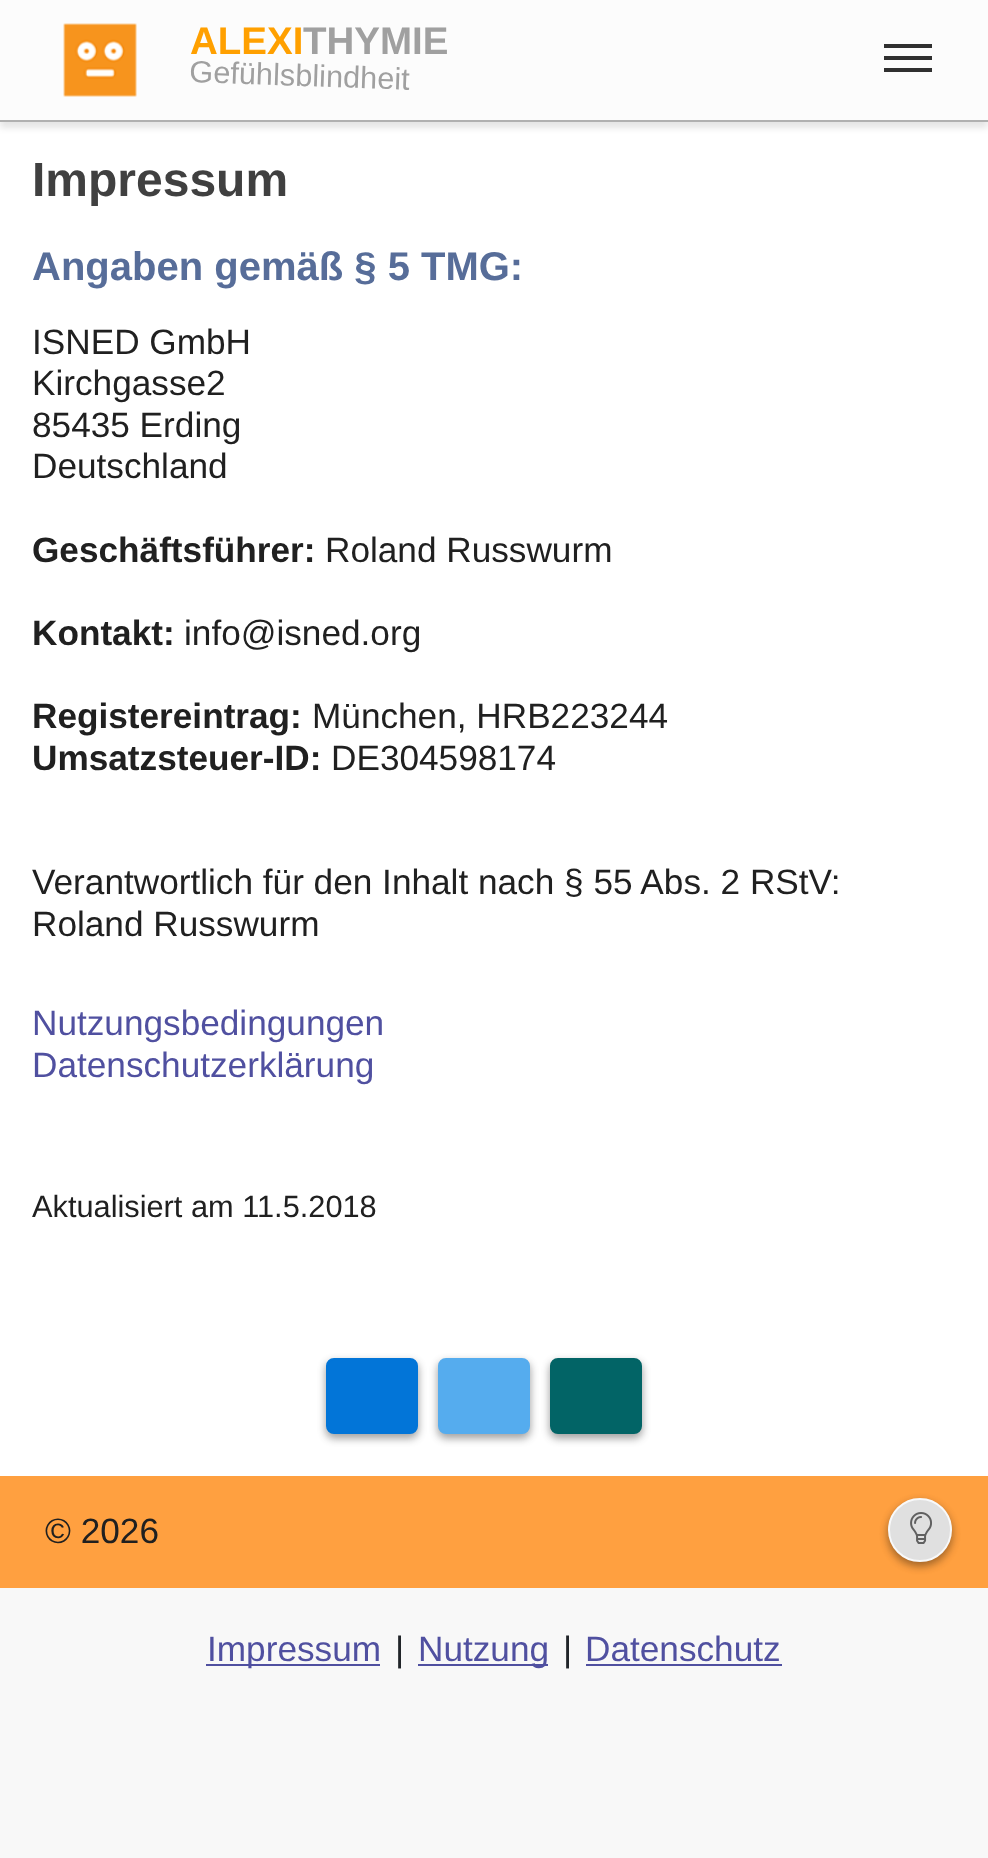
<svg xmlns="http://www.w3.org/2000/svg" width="988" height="1858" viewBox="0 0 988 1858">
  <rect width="100%" height="100%" fill="#f8f8f8"/>
  <path d="M0 122h988v1354H0z" fill="#fff"/>
  <path d="M0 6h988v122H0z" fill="#0000001a" filter="blur(3px)"/>
  <path d="M0 0h988v120H0z" fill="#fcfcfc"/>
  <path d="M0 120h988v2H0z" fill="#b0b0b0"/>
  <image x="63" y="23" width="74" height="74" href="img/1.png"/>
  <path d="M884 56h48v4H884z" fill="#303030"/>
  <path d="M884 44h48v4H884z" fill="#303030"/>
  <path d="M884 68h48v4H884z" fill="#303030"/>
  <rect x="326" y="1362" width="92" height="76" rx="8" fill="#00000024" filter="blur(4px)"/>
  <rect x="326" y="1362" width="92" height="76" rx="8" fill="#00000047" filter="blur(4px)"/>
  <rect x="327" y="1359" width="90" height="74" rx="7" fill="#0275d8" stroke="#0275d8" stroke-width="2"/>
  <rect x="438" y="1362" width="92" height="76" rx="8" fill="#00000024" filter="blur(4px)"/>
  <rect x="438" y="1362" width="92" height="76" rx="8" fill="#00000047" filter="blur(4px)"/>
  <rect x="439" y="1359" width="90" height="74" rx="7" fill="#55acee" stroke="#55acee" stroke-width="2"/>
  <rect x="550" y="1362" width="92" height="76" rx="8" fill="#00000024" filter="blur(4px)"/>
  <rect x="550" y="1362" width="92" height="76" rx="8" fill="#00000047" filter="blur(4px)"/>
  <rect x="551" y="1359" width="90" height="74" rx="7" fill="#026466" stroke="#026466" stroke-width="2"/>
  <path d="M0 1476h988v112H0z" fill="#ffa040"/>
  <rect x="888" y="1502" width="64" height="64" rx="32" fill="#00000024" filter="blur(4px)"/>
  <rect x="888" y="1502" width="64" height="64" rx="32" fill="#00000047" filter="blur(4px)"/>
  <circle cx="920" cy="1530" r="31" fill="#e0e0e0" stroke="#f8f9fa" stroke-width="2"/>
  <image x="910" y="1512" width="22" height="32" href="img/2.png"/>
  <path d="M206 1664h174v2H206z" fill="#5050a0"/>
  <path d="M418 1664h130v2H418z" fill="#5050a0"/>
  <path d="M586 1664h196v2H586z" fill="#5050a0"/>
  <text x="190" y="54" font-family="Liberation Sans" font-size="38.5" font-weight="bold" fill="#ffa000">ALEXI</text>
  <text x="303" y="54" font-family="Liberation Sans" font-size="38.5" font-weight="bold" fill="#a0a0a0">THYMIE</text>
  <text x="189" y="82" transform="rotate(2 189 82)" font-family="Liberation Sans" font-size="30.75" fill="#a0a0a0">Gefühlsblindheit</text>
  <text x="32" y="196" font-family="Liberation Sans" font-size="48" font-weight="bold" fill="#404040">Impressum</text>
  <text x="32" y="280" font-family="Liberation Sans" font-size="40" font-weight="bold" fill="#576d99">Angaben gemäß § 5 TMG:</text>
  <g font-family="Liberation Sans" font-size="35.2" fill="#202020">
    <text x="32" y="354">ISNED GmbH</text>
    <text x="32" y="395">Kirchgasse2</text>
    <text x="32" y="437">85435 Erding</text>
    <text x="32" y="478">Deutschland</text>
  </g>
  <text x="32" y="562" font-family="Liberation Sans" font-size="35.2" font-weight="bold" fill="#202020">Geschäftsführer:</text>
  <text x="325" y="562" font-family="Liberation Sans" font-size="35.2" fill="#202020">Roland Russwurm</text>
  <text x="32" y="645" font-family="Liberation Sans" font-size="35.2" font-weight="bold" fill="#202020">Kontakt:</text>
  <text x="184" y="645" font-family="Liberation Sans" font-size="35.2" fill="#202020">info@isned.org</text>
  <text x="32" y="728" font-family="Liberation Sans" font-size="35.2" font-weight="bold" fill="#202020">Registereintrag:</text>
  <text x="312" y="728" font-family="Liberation Sans" font-size="35.2" fill="#202020">München, HRB223244</text>
  <text x="32" y="770" font-family="Liberation Sans" font-size="35.2" font-weight="bold" fill="#202020">Umsatzsteuer-ID:</text>
  <g font-family="Liberation Sans" font-size="35.2" fill="#202020">
    <text x="331" y="770">DE304598174</text>
    <text x="32" y="894">Verantwortlich für den Inhalt nach § 55 Abs. 2 RStV:</text>
    <text x="32" y="936">Roland Russwurm</text>
  </g>
  <g font-family="Liberation Sans" font-size="35.2" fill="#5050a0">
    <text x="32" y="1035">Nutzungsbedingungen</text>
    <text x="32" y="1077">Datenschutzerklärung</text>
  </g>
  <text x="32" y="1217" font-family="Liberation Sans" font-size="30.75" fill="#202020">Aktualisiert am 11.5.2018</text>
  <text x="45" y="1543" font-family="Liberation Sans" font-size="35.2" fill="#202020">© 2026</text>
  <text x="207" y="1661" font-family="Liberation Sans" font-size="35.2" fill="#5050a0">Impressum</text>
  <text x="395" y="1661" font-family="Liberation Sans" font-size="35.2" fill="#212529">|</text>
  <text x="418" y="1661" font-family="Liberation Sans" font-size="35.2" fill="#5050a0">Nutzung</text>
  <text x="563" y="1661" font-family="Liberation Sans" font-size="35.2" fill="#212529">|</text>
  <text x="585" y="1661" font-family="Liberation Sans" font-size="35.2" fill="#5050a0">Datenschutz</text>
</svg>
